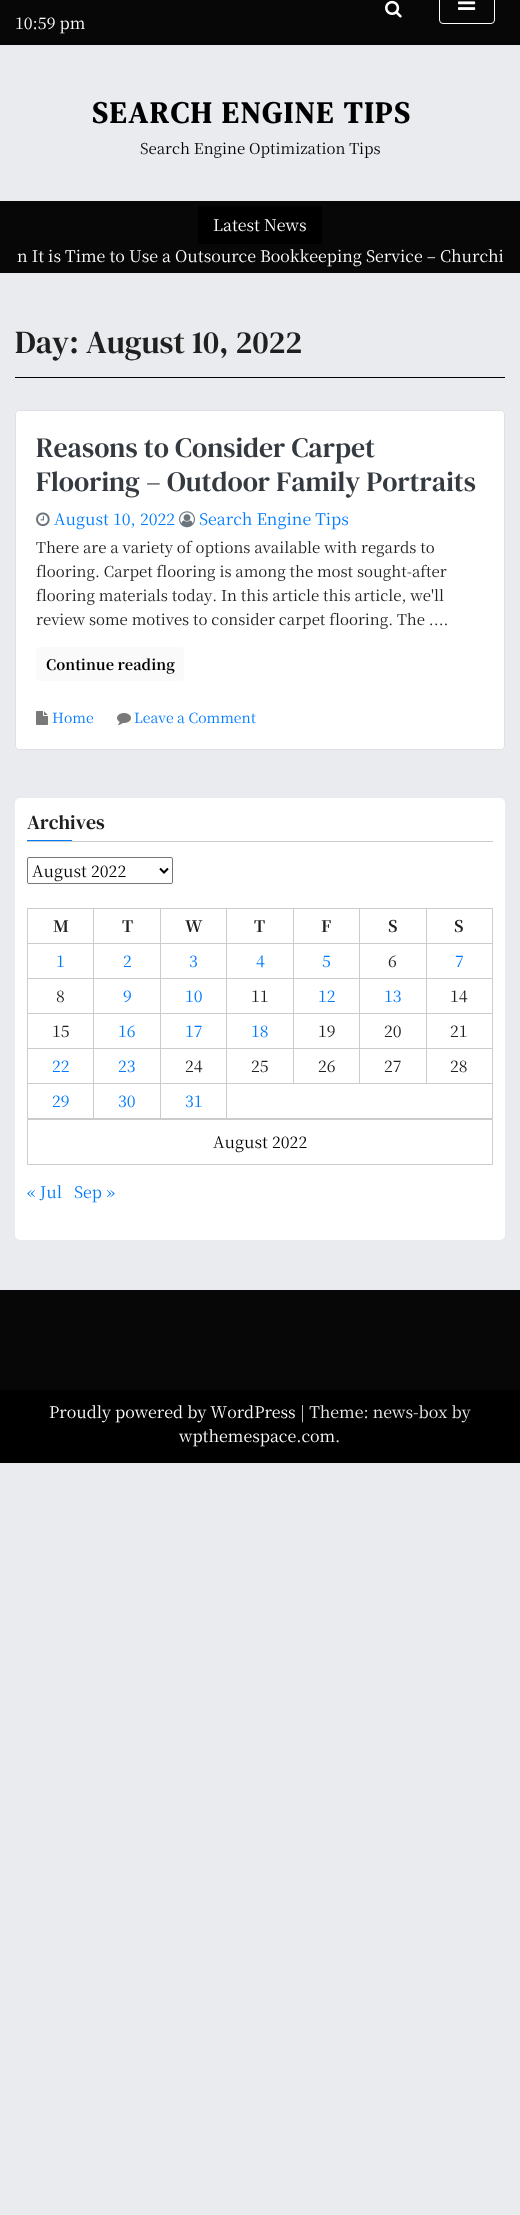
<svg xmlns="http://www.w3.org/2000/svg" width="520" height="2215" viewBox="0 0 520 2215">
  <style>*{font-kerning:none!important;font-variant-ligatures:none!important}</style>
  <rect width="100%" height="100%" fill="#e9ebee"/>
  <path d="M0 0h520v45H0z" fill="#070707"/>
  <image x="385" y="0" width="17" height="18" href="img/1.png"/>
  <rect x="439.5" y="-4.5" width="55" height="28" rx="3.5" fill="none" stroke="#fff"/>
  <image x="458" y="1" width="18" height="9" href="img/2.png"/>
  <path d="M0 201h520v72H0z" fill="#070707"/>
  <path d="M198 206h124v38H198z" fill="#000"/>
  <path d="M15 377h490v1H15z" fill="#000"/>
  <rect x="15" y="410" width="490" height="340" rx="4" fill="#fff"/>
  <rect x="15.5" y="410.5" width="489" height="339" rx="3.5" fill="none" stroke="#0000001f"/>
  <image x="36" y="512" width="14" height="15" href="img/3.png"/>
  <image x="179" y="511" width="16" height="17" href="img/4.png"/>
  <rect x="36" y="647" width="148" height="34" rx="4" fill="#fafafa"/>
  <image x="36" y="711" width="12" height="14" href="img/5.png"/>
  <image x="117" y="713" width="14" height="12" href="img/6.png"/>
  <rect x="15" y="798" width="490" height="442" rx="5" fill="#fff"/>
  <path d="M27 841h466v1H27z" fill="#ccc"/>
  <path d="M27 840h45v1H27z" fill="#007bff"/>
  <rect x="27.5" y="857.5" width="145" height="26" rx="1.5" fill="none" stroke="#767676"/>
  <path d="M160 868.5L164 872.5L168 868.5" fill="none" stroke="#000" stroke-width="2"/>
  <path d="M27 908h1v211H27z" fill="#ccc"/>
  <path d="M27 908h466v1H27z" fill="#ccc"/>
  <path d="M27 943h466v1H27z" fill="#ccc"/>
  <path d="M27 978h466v1H27z" fill="#ccc"/>
  <path d="M27 1013h466v1H27z" fill="#ccc"/>
  <path d="M27 1048h466v1H27z" fill="#ccc"/>
  <path d="M27 1083h466v1H27z" fill="#ccc"/>
  <path d="M293 908h1v176H293z" fill="#ccc"/>
  <path d="M359 908h1v176H359z" fill="#ccc"/>
  <path d="M426 908h1v176H426z" fill="#ccc"/>
  <path d="M27 1118h466v1H27z" fill="#ccc"/>
  <path d="M93 908h1v211H93z" fill="#ccc"/>
  <path d="M160 908h1v211H160z" fill="#ccc"/>
  <path d="M226 908h1v211H226z" fill="#ccc"/>
  <path d="M492 908h1v211H492z" fill="#ccc"/>
  <path d="M27.5 1119.5h465v45H27.5z" fill="none" stroke="#ccc"/>
  <path d="M0 1290h520v100H0z" fill="#070707"/>
  <path d="M0 1390h520v73H0z" fill="#000"/>
  <text x="15" y="29" font-family="Noto Serif TC" font-size="16" fill="#fff">10:59 pm</text>
  <text x="92" y="123" font-family="DM Serif Text" font-size="30" font-weight="bold" letter-spacing="2" fill="#000">SEARCH ENGINE TIPS</text>
  <text x="140" y="154" font-family="Noto Serif TC" font-size="15" fill="#000">Search Engine Optimization Tips</text>
  <g font-family="Noto Serif TC" font-size="16" fill="#fff">
    <text x="213" y="231">Latest News</text>
    <text x="17" y="262">n It is Time to Use a Outsource Bookkeeping Service – Churchi</text>
  </g>
  <text x="15" y="353" font-family="DM Serif Text" font-size="32" fill="#202020">Day: August 10, 2022</text>
  <g font-family="DM Serif Text" font-size="28" fill="#343a40">
    <text x="36" y="457">Reasons to Consider Carpet</text>
    <text x="36" y="491">Flooring – Outdoor Family Portraits</text>
  </g>
  <g font-family="Noto Serif TC" font-size="16" fill="#007bff">
    <text x="54" y="525">August 10, 2022</text>
    <text x="199" y="525">Search Engine Tips</text>
  </g>
  <g font-family="Noto Serif TC" font-size="15" fill="#202020">
    <text x="36" y="553">There are a variety of options available with regards to</text>
    <text x="36" y="577">flooring. Carpet flooring is among the most sought-after</text>
    <text x="36" y="601">flooring materials today. In this article this article, we'll</text>
    <text x="36" y="625">review some motives to consider carpet flooring. The ....</text>
  </g>
  <text x="46" y="670" font-family="Noto Serif TC" font-size="14.5" font-weight="bold" fill="#000">Continue reading</text>
  <g font-family="Noto Serif TC" font-size="14" fill="#007bff">
    <text x="52" y="723">Home</text>
    <text x="134" y="723">Leave a Comment</text>
  </g>
  <text x="27" y="829" font-family="DM Serif Text" font-size="20" fill="#202020">Archives</text>
  <text x="32" y="877" font-family="Noto Serif TC" font-size="16" fill="#000">August 2022</text>
  <g font-family="Noto Serif TC" font-size="16" font-weight="bold" fill="#202020">
    <text x="53" y="932">M</text>
    <text x="122" y="932">T</text>
    <text x="185" y="932">W</text>
    <text x="254" y="932">T</text>
    <text x="321" y="932">F</text>
    <text x="388" y="932">S</text>
    <text x="454" y="932">S</text>
  </g>
  <g font-family="Noto Serif TC" font-size="16" fill="#007bff">
    <text x="56" y="967">1</text>
    <text x="123" y="967">2</text>
    <text x="189" y="967">3</text>
    <text x="256" y="967">4</text>
    <text x="322" y="967">5</text>
  </g>
  <text x="388" y="967" font-family="Noto Serif TC" font-size="16" fill="#202020">6</text>
  <text x="455" y="967" font-family="Noto Serif TC" font-size="16" fill="#007bff">7</text>
  <text x="56" y="1002" font-family="Noto Serif TC" font-size="16" fill="#202020">8</text>
  <g font-family="Noto Serif TC" font-size="16" fill="#007bff">
    <text x="123" y="1002">9</text>
    <text x="185" y="1002">10</text>
  </g>
  <text x="251" y="1002" font-family="Noto Serif TC" font-size="16" fill="#202020">11</text>
  <g font-family="Noto Serif TC" font-size="16" fill="#007bff">
    <text x="318" y="1002">12</text>
    <text x="384" y="1002">13</text>
  </g>
  <g font-family="Noto Serif TC" font-size="16" fill="#202020">
    <text x="450" y="1002">14</text>
    <text x="52" y="1037">15</text>
  </g>
  <g font-family="Noto Serif TC" font-size="16" fill="#007bff">
    <text x="118" y="1037">16</text>
    <text x="185" y="1037">17</text>
    <text x="251" y="1037">18</text>
  </g>
  <g font-family="Noto Serif TC" font-size="16" fill="#202020">
    <text x="318" y="1037">19</text>
    <text x="384" y="1037">20</text>
    <text x="450" y="1037">21</text>
  </g>
  <g font-family="Noto Serif TC" font-size="16" fill="#007bff">
    <text x="52" y="1072">22</text>
    <text x="118" y="1072">23</text>
  </g>
  <g font-family="Noto Serif TC" font-size="16" fill="#202020">
    <text x="185" y="1072">24</text>
    <text x="251" y="1072">25</text>
    <text x="318" y="1072">26</text>
    <text x="384" y="1072">27</text>
    <text x="450" y="1072">28</text>
  </g>
  <g font-family="Noto Serif TC" font-size="16" fill="#007bff">
    <text x="52" y="1107">29</text>
    <text x="118" y="1107">30</text>
    <text x="185" y="1107">31</text>
  </g>
  <text x="213" y="1148" font-family="Noto Serif TC" font-size="16" fill="#000">August 2022</text>
  <g font-family="Noto Serif TC" font-size="16" fill="#007bff">
    <text x="27" y="1198">« Jul</text>
    <text x="74" y="1198">Sep »</text>
  </g>
  <text x="49" y="1418" font-family="Noto Serif TC" font-size="16" fill="#fff">Proudly powered by WordPress</text>
  <text x="300" y="1418" font-family="Noto Serif TC" font-size="16" fill="#ededed">| Theme: news-box by</text>
  <text x="179" y="1442" font-family="Noto Serif TC" font-size="16" fill="#fff">wpthemespace.com</text>
  <text x="335" y="1442" font-family="Noto Serif TC" font-size="16" fill="#ededed">.</text>
</svg>
